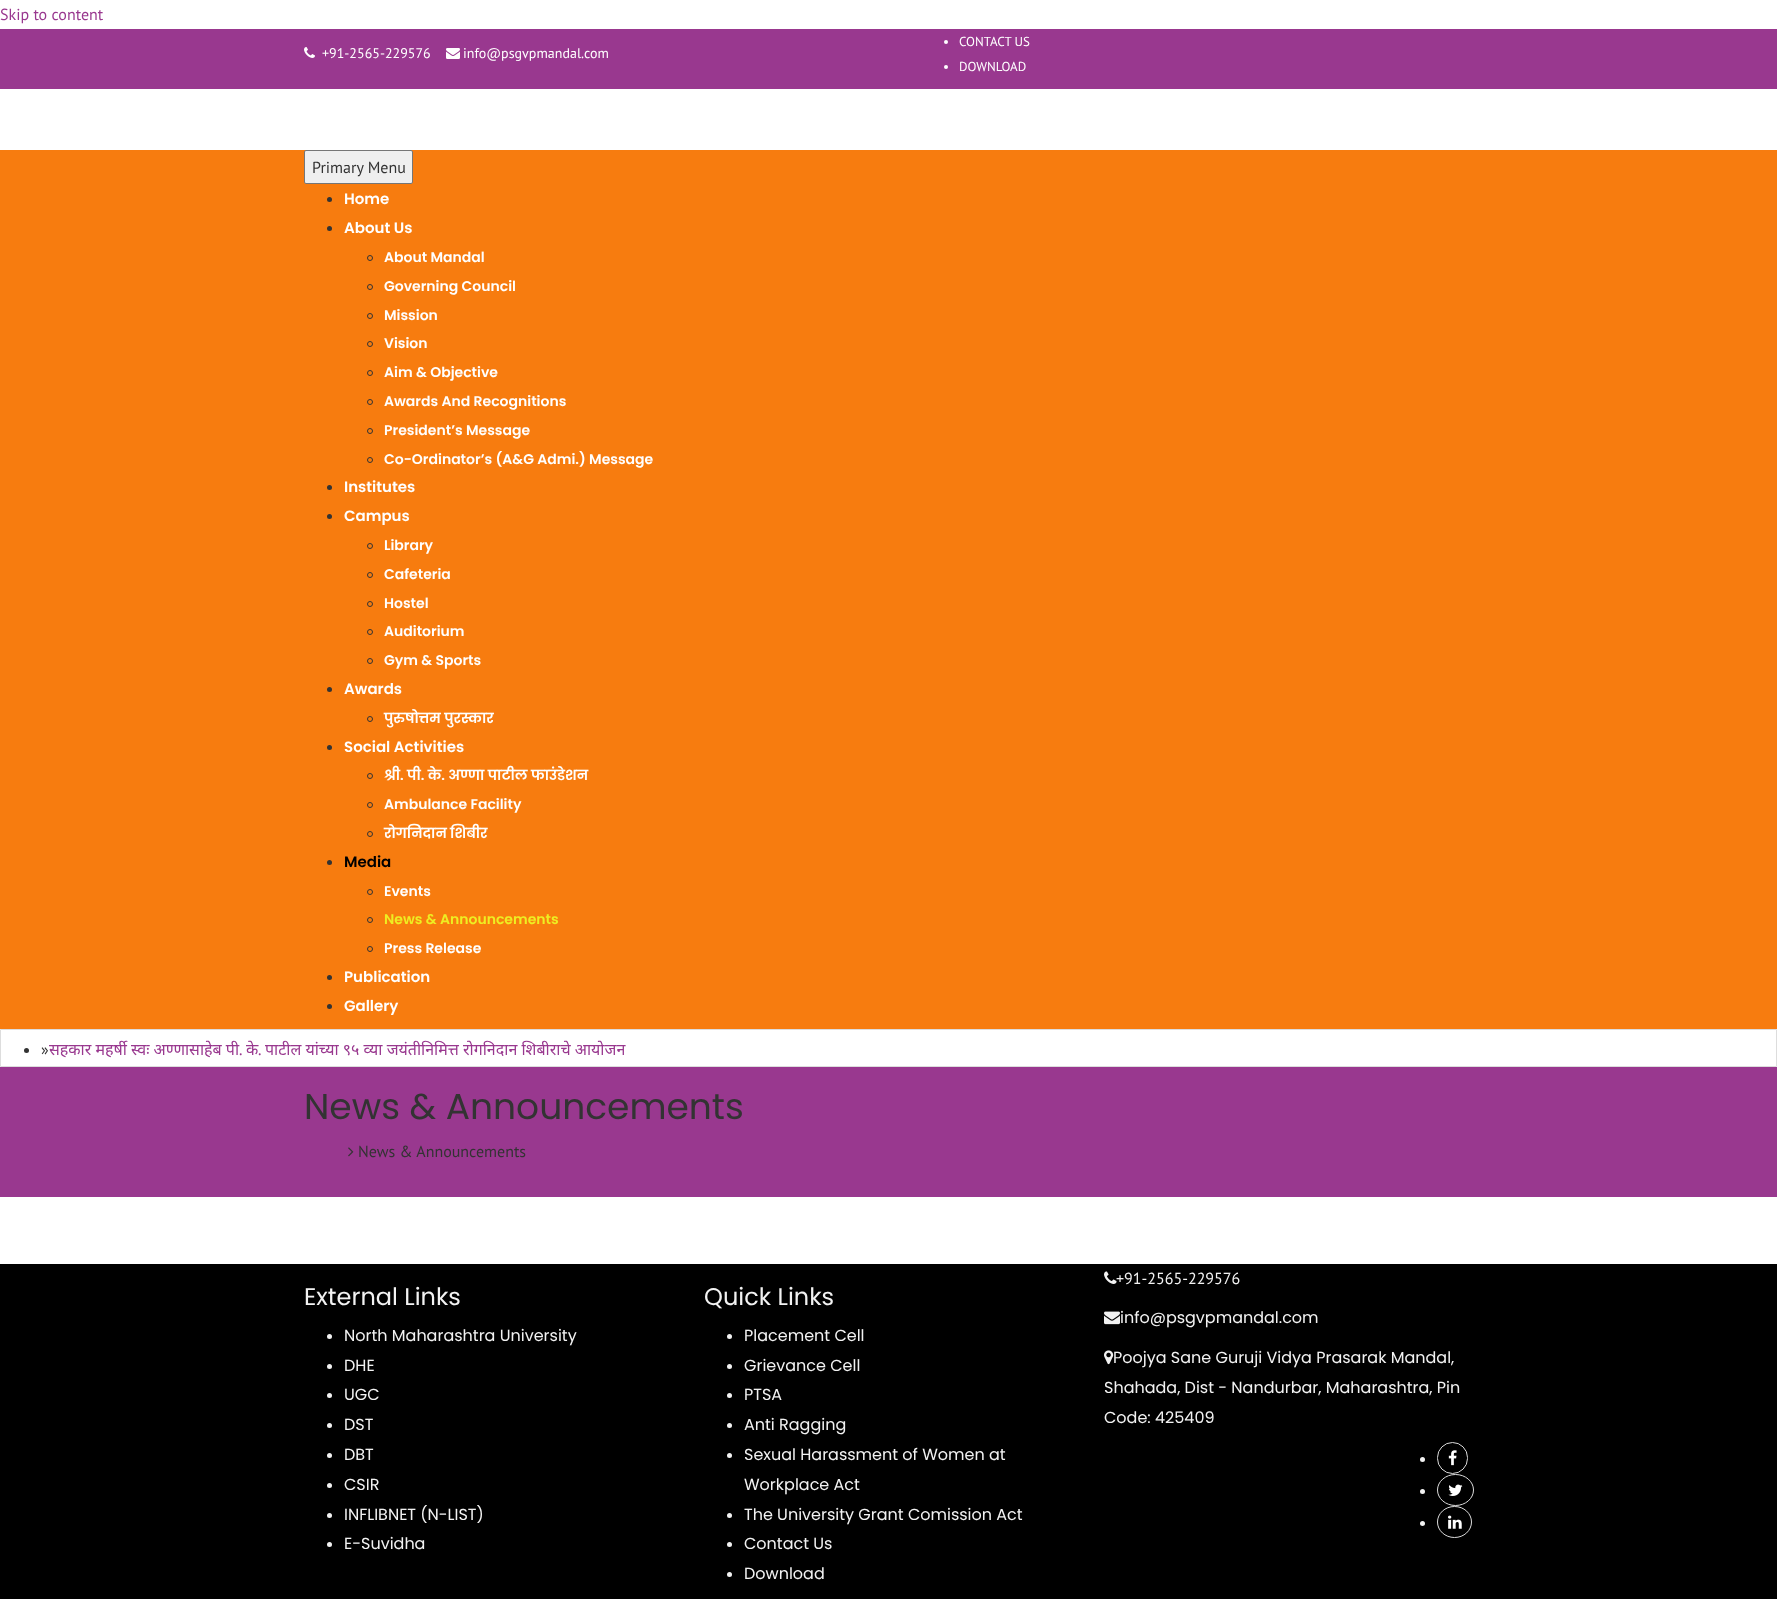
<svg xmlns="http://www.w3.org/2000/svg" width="1777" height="1606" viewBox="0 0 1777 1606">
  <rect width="100%" height="100%" fill="#fff"/>
  <path d="M0 29h1777v60H0z" fill="#99388f"/>
  <image x="304" y="47" width="11" height="11" href="img/1.png"/>
  <image x="446" y="48" width="14" height="11" href="img/2.png"/>
  <circle cx="946" cy="42" r="2" fill="#fff"/>
  <circle cx="946" cy="67" r="2" fill="#fff"/>
  <path d="M0 150h1777v879H0z" fill="#f77c0f"/>
  <rect x="304.5" y="150.5" width="108" height="33" rx="1.5" fill="#efefef" stroke="#767676"/>
  <circle cx="329.5" cy="199.5" r="2.5" fill="#333"/>
  <circle cx="329.5" cy="228.5" r="2.5" fill="#333"/>
  <circle cx="370" cy="258" r="2.5" fill="none" stroke="#333"/>
  <circle cx="370" cy="287" r="2.5" fill="none" stroke="#333"/>
  <circle cx="370" cy="316" r="2.5" fill="none" stroke="#333"/>
  <circle cx="370" cy="344" r="2.5" fill="none" stroke="#333"/>
  <circle cx="370" cy="373" r="2.5" fill="none" stroke="#333"/>
  <circle cx="370" cy="402" r="2.5" fill="none" stroke="#333"/>
  <circle cx="370" cy="431" r="2.5" fill="none" stroke="#333"/>
  <circle cx="370" cy="460" r="2.5" fill="none" stroke="#333"/>
  <circle cx="329.5" cy="487.5" r="2.5" fill="#333"/>
  <circle cx="329.5" cy="516.5" r="2.5" fill="#333"/>
  <circle cx="370" cy="546" r="2.5" fill="none" stroke="#333"/>
  <circle cx="370" cy="575" r="2.5" fill="none" stroke="#333"/>
  <circle cx="370" cy="604" r="2.5" fill="none" stroke="#333"/>
  <circle cx="370" cy="632" r="2.5" fill="none" stroke="#333"/>
  <circle cx="370" cy="661" r="2.5" fill="none" stroke="#333"/>
  <circle cx="329.5" cy="689.5" r="2.5" fill="#333"/>
  <circle cx="370" cy="719" r="2.5" fill="none" stroke="#333"/>
  <circle cx="329.5" cy="747.5" r="2.5" fill="#333"/>
  <circle cx="370" cy="776" r="2.5" fill="none" stroke="#333"/>
  <circle cx="370" cy="805" r="2.5" fill="none" stroke="#333"/>
  <circle cx="370" cy="834" r="2.5" fill="none" stroke="#333"/>
  <circle cx="329.5" cy="862.5" r="2.5" fill="#333"/>
  <circle cx="370" cy="892" r="2.5" fill="none" stroke="#333"/>
  <circle cx="370" cy="920" r="2.5" fill="none" stroke="#333"/>
  <circle cx="370" cy="949" r="2.5" fill="none" stroke="#333"/>
  <circle cx="329.5" cy="977.5" r="2.5" fill="#333"/>
  <circle cx="329.5" cy="1006.5" r="2.5" fill="#333"/>
  <path d="M0.5 1029.5h1776v37H0.5z" fill="none" stroke="#ddd"/>
  <circle cx="26.5" cy="1050.5" r="2.5" fill="#333"/>
  <path d="M0 1067h1777v130H0z" fill="#99388f"/>
  <image x="348" y="1147" width="6" height="10" href="img/3.png"/>
  <path d="M0 1264h1777v335H0z" fill="#000"/>
  <circle cx="329.5" cy="1336.5" r="2.5" fill="#f2f2f2"/>
  <circle cx="329.5" cy="1366.5" r="2.5" fill="#f2f2f2"/>
  <circle cx="329.5" cy="1395.5" r="2.5" fill="#f2f2f2"/>
  <circle cx="329.5" cy="1425.5" r="2.5" fill="#f2f2f2"/>
  <circle cx="329.5" cy="1455.5" r="2.5" fill="#f2f2f2"/>
  <circle cx="329.5" cy="1485.5" r="2.5" fill="#f2f2f2"/>
  <circle cx="329.5" cy="1515.5" r="2.5" fill="#f2f2f2"/>
  <circle cx="329.5" cy="1544.5" r="2.5" fill="#f2f2f2"/>
  <circle cx="729.5" cy="1336.5" r="2.5" fill="#f2f2f2"/>
  <circle cx="729.5" cy="1366.5" r="2.5" fill="#f2f2f2"/>
  <circle cx="729.5" cy="1395.5" r="2.5" fill="#f2f2f2"/>
  <circle cx="729.5" cy="1425.5" r="2.5" fill="#f2f2f2"/>
  <circle cx="729.5" cy="1455.5" r="2.5" fill="#f2f2f2"/>
  <circle cx="729.5" cy="1515.5" r="2.5" fill="#f2f2f2"/>
  <circle cx="729.5" cy="1544.5" r="2.5" fill="#f2f2f2"/>
  <circle cx="729.5" cy="1574.5" r="2.5" fill="#f2f2f2"/>
  <image x="1104" y="1271" width="13" height="13" href="img/4.png"/>
  <image x="1104" y="1311" width="16" height="14" href="img/5.png"/>
  <image x="1104" y="1350" width="10" height="15" href="img/6.png"/>
  <circle cx="1422.5" cy="1459.5" r="2.5" fill="#f2f2f2"/>
  <rect x="1437.5" y="1442.5" width="30" height="31" rx="15" fill="none" stroke="#dbdbdb"/>
  <image x="1448" y="1450" width="9" height="16" href="img/7.png"/>
  <circle cx="1422.5" cy="1491.5" r="2.5" fill="#f2f2f2"/>
  <path d="M1455.5 1474.5C1465.5 1474.5 1473.5 1481.5 1473.5 1490C1473.5 1498.5 1465.5 1505.5 1455.5 1505.5C1445.5 1505.5 1437.5 1498.5 1437.5 1490C1437.5 1481.5 1445.5 1474.5 1455.5 1474.5Z" fill="none" stroke="#dbdbdb"/>
  <image x="1448" y="1484" width="15" height="12" href="img/8.png"/>
  <circle cx="1422.5" cy="1523.5" r="2.5" fill="#f2f2f2"/>
  <path d="M1454.5 1506.5C1464 1506.5 1471.5 1513.5 1471.5 1522C1471.5 1530.5 1464 1537.5 1454.5 1537.5C1445 1537.5 1437.5 1530.5 1437.5 1522C1437.5 1513.5 1445 1506.5 1454.5 1506.5Z" fill="none" stroke="#dbdbdb"/>
  <image x="1448" y="1515" width="14" height="14" href="img/9.png"/>
  <text x="0" y="20" font-family="PT Sans" font-size="16" fill="#99388f">Skip to content</text>
  <g font-family="PT Sans" font-size="14" fill="#fff">
    <text x="322" y="58">+91-2565-229576</text>
    <text x="463" y="58">info@psgvpmandal.com</text>
  </g>
  <g font-family="PT Sans" font-size="13" fill="#fff">
    <text x="959" y="46">CONTACT US</text>
    <text x="959" y="71">DOWNLOAD</text>
  </g>
  <text x="312" y="173" font-family="PT Sans" font-size="16" fill="#333">Primary Menu</text>
  <g font-family="Poppins" font-size="15" font-weight="600" fill="#fff">
    <text x="344" y="204">Home</text>
    <text x="344" y="233">About Us</text>
  </g>
  <g font-family="Poppins" font-size="14" font-weight="600" fill="#fff">
    <text x="384" y="262">About Mandal</text>
    <text x="384" y="291">Governing Council</text>
    <text x="384" y="320">Mission</text>
    <text x="384" y="348">Vision</text>
    <text x="384" y="377">Aim &amp; Objective</text>
    <text x="384" y="406">Awards And Recognitions</text>
    <text x="384" y="435">President’s Message</text>
    <text x="384" y="464">Co-Ordinator’s (A&amp;G Admi.) Message</text>
  </g>
  <g font-family="Poppins" font-size="15" font-weight="600" fill="#fff">
    <text x="344" y="492">Institutes</text>
    <text x="344" y="521">Campus</text>
  </g>
  <g font-family="Poppins" font-size="14" font-weight="600" fill="#fff">
    <text x="384" y="550">Library</text>
    <text x="384" y="579">Cafeteria</text>
    <text x="384" y="608">Hostel</text>
    <text x="384" y="636">Auditorium</text>
    <text x="384" y="665">Gym &amp; Sports</text>
  </g>
  <text x="344" y="694" font-family="Poppins" font-size="15" font-weight="600" fill="#fff">Awards</text>
  <text x="384" y="723" font-family="Poppins" font-size="14" font-weight="600" fill="#fff">पुरुषोत्तम पुरस्कार</text>
  <text x="344" y="752" font-family="Poppins" font-size="15" font-weight="600" fill="#fff">Social Activities</text>
  <g font-family="Poppins" font-size="14" font-weight="600" fill="#fff">
    <text x="384" y="780">श्री. पी. के. अण्णा पाटील फाउंडेशन</text>
    <text x="384" y="809">Ambulance Facility</text>
    <text x="384" y="838">रोगनिदान शिबीर</text>
  </g>
  <text x="344" y="867" font-family="Poppins" font-size="15" font-weight="600" fill="#000">Media</text>
  <text x="384" y="896" font-family="Poppins" font-size="14" font-weight="600" fill="#fff">Events</text>
  <text x="384" y="924" font-family="Poppins" font-size="14" font-weight="600" fill="#ee2">News &amp; Announcements</text>
  <text x="384" y="953" font-family="Poppins" font-size="14" font-weight="600" fill="#fff">Press Release</text>
  <g font-family="Poppins" font-size="15" font-weight="600" fill="#fff">
    <text x="344" y="982">Publication</text>
    <text x="344" y="1011">Gallery</text>
  </g>
  <text x="41" y="1055" font-family="PT Sans" font-size="16" fill="#333">»</text>
  <g font-family="Noto Sans" font-size="16" fill="#99388f">
    <text x="49" y="1055">सहकार महर्षी स्वः अण्णासाहेब पी</text>
    <text x="265" y="1055">पाटील यांच्या ९५ व्या जयंतीनिमित्त रोगनिदान शिबीराचे आयोजन</text>
  </g>
  <text x="239" y="1055" font-family="PT Sans" font-size="16" fill="#99388f">.</text>
  <text x="246" y="1055" font-family="Noto Sans" font-size="16" fill="#99388f">के</text>
  <text x="258" y="1055" font-family="PT Sans" font-size="16" fill="#99388f">.</text>
  <text x="304" y="1119" font-family="Poppins" font-size="36" fill="#333">News &amp; Announcements</text>
  <text x="358" y="1157" font-family="PT Sans" font-size="16" fill="#333">News &amp; Announcements</text>
  <text x="304" y="1305" font-family="Poppins" font-size="24" fill="#f2f2f2">External Links</text>
  <g font-family="Poppins" font-size="16" fill="#f2f2f2">
    <text x="344" y="1341">North Maharashtra University</text>
    <text x="344" y="1371">DHE</text>
    <text x="344" y="1400">UGC</text>
    <text x="344" y="1430">DST</text>
    <text x="344" y="1460">DBT</text>
    <text x="344" y="1490">CSIR</text>
    <text x="344" y="1520">INFLIBNET (N-LIST)</text>
    <text x="344" y="1549">E-Suvidha</text>
  </g>
  <text x="704" y="1305" font-family="Poppins" font-size="24" fill="#f2f2f2">Quick Links</text>
  <g font-family="Poppins" font-size="16" fill="#f2f2f2">
    <text x="744" y="1341">Placement Cell</text>
    <text x="744" y="1371">Grievance Cell</text>
    <text x="744" y="1400">PTSA</text>
    <text x="744" y="1430">Anti Ragging</text>
    <text x="744" y="1460">Sexual Harassment of Women at</text>
    <text x="744" y="1490">Workplace Act</text>
    <text x="744" y="1520">The University Grant Comission Act</text>
    <text x="744" y="1549">Contact Us</text>
    <text x="744" y="1579">Download</text>
  </g>
  <text x="1116" y="1284" font-family="PT Sans" font-size="16" fill="#f2f2f2">+91-2565-229576</text>
  <g font-family="Poppins" font-size="16" fill="#f2f2f2">
    <text x="1120" y="1323">info@psgvpmandal.com</text>
    <text x="1113" y="1363">Poojya Sane Guruji Vidya Prasarak Mandal,</text>
    <text x="1104" y="1393">Shahada, Dist - Nandurbar, Maharashtra, Pin</text>
    <text x="1104" y="1423">Code: 425409</text>
  </g>
</svg>
